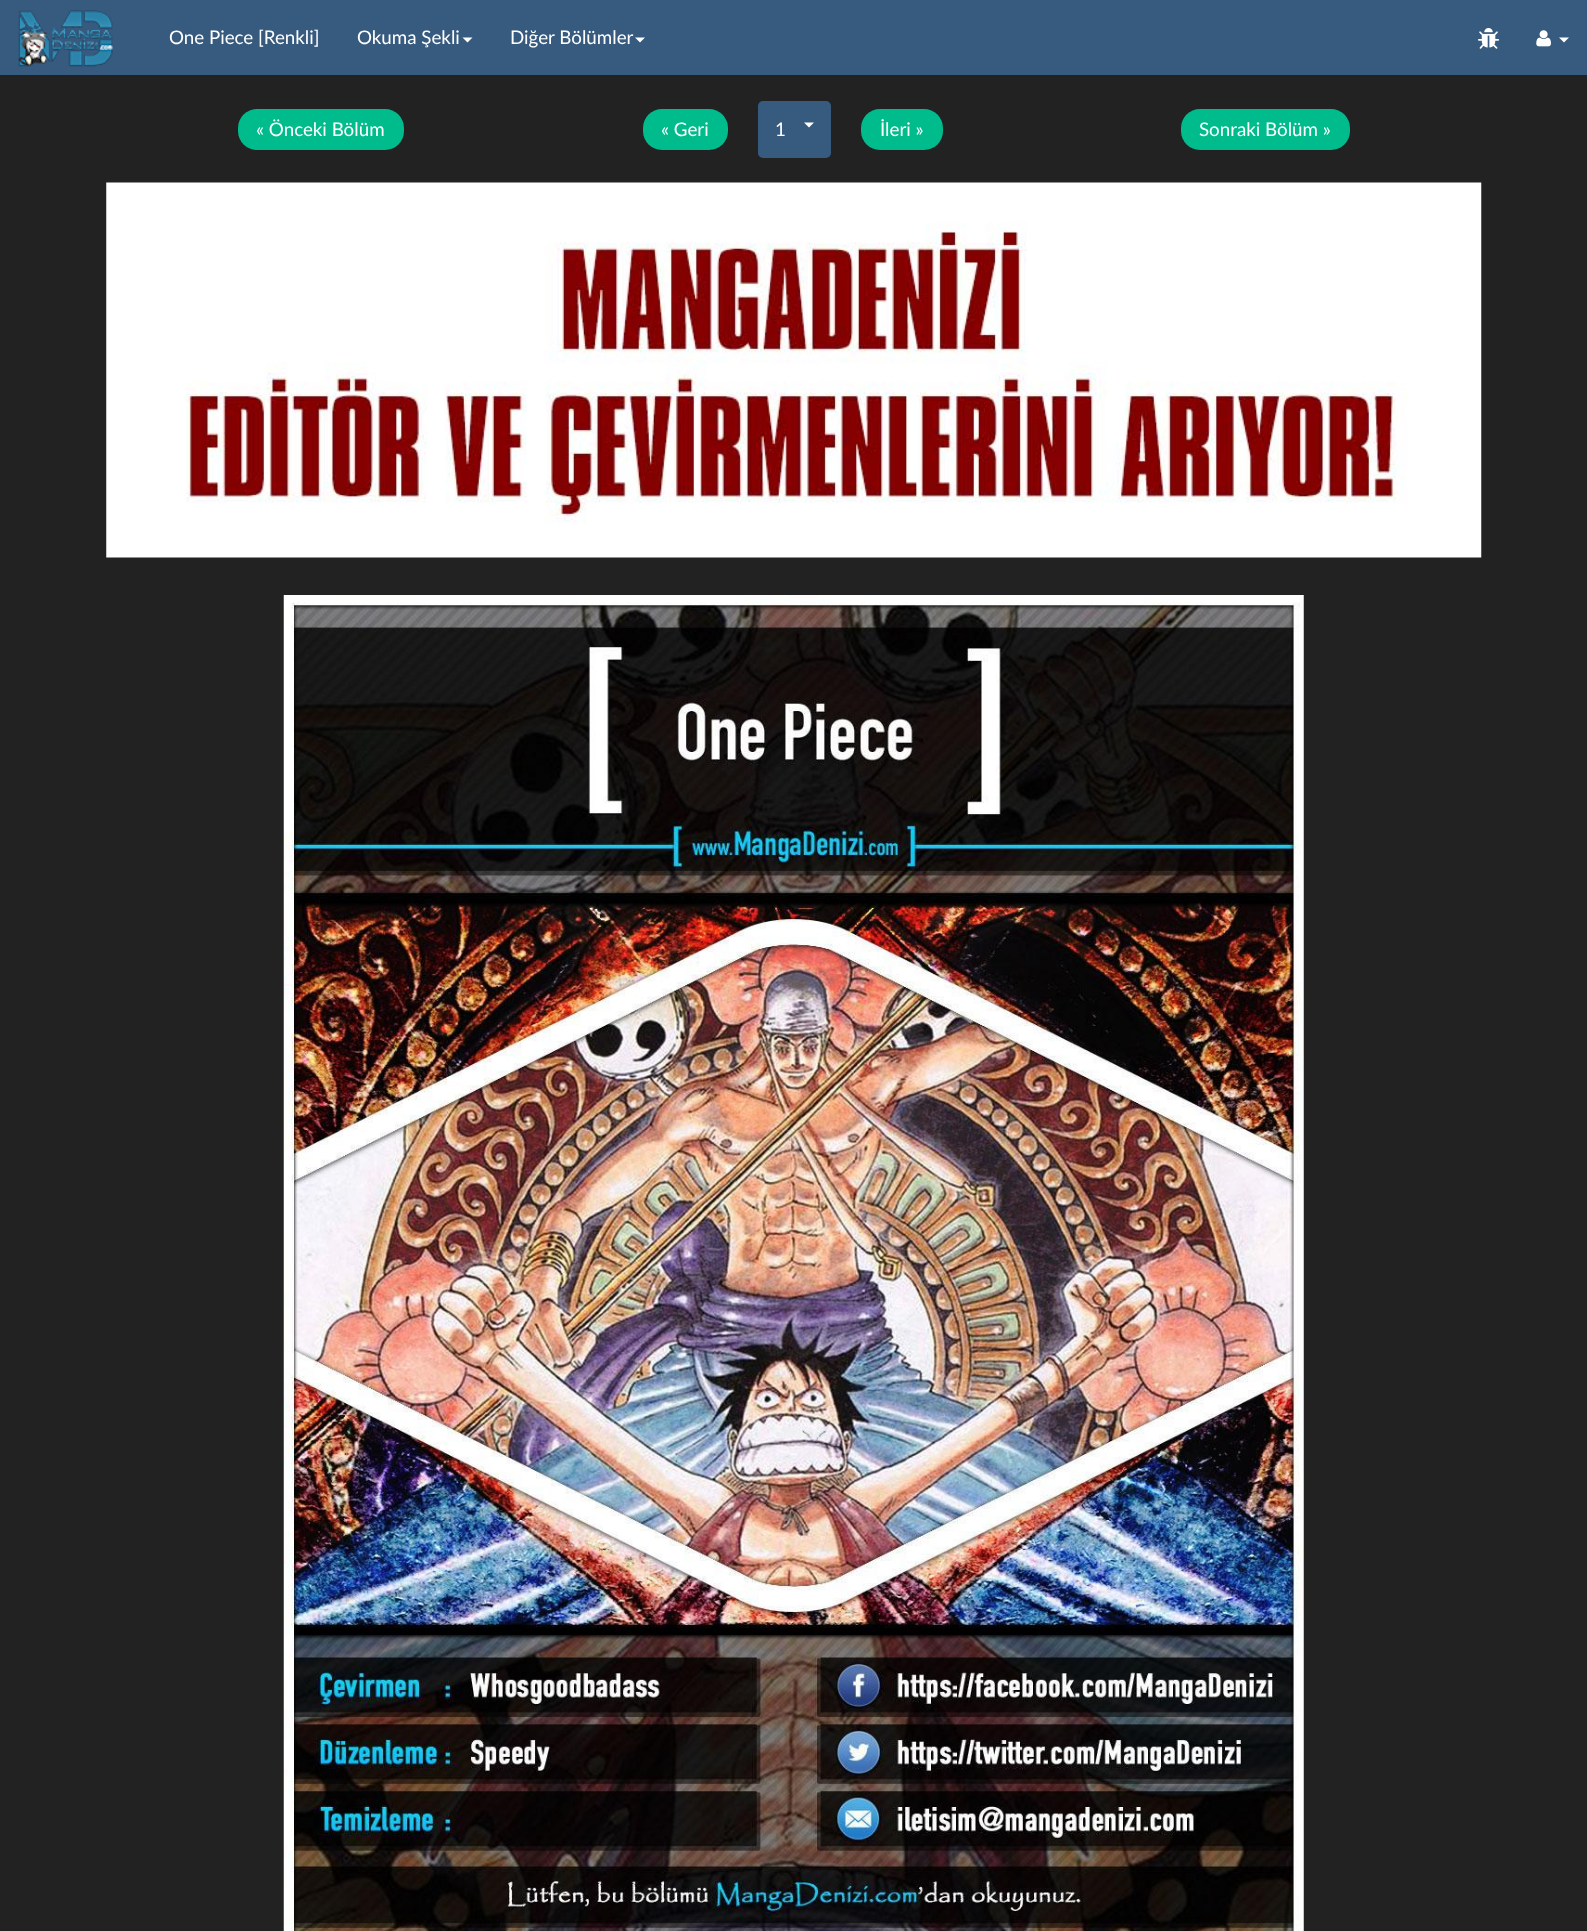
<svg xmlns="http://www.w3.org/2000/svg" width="1587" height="1931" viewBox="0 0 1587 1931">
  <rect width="100%" height="100%" fill="#222"/>
  <path d="M0 0h1587v75H0z" fill="#375a7f"/>
  <image x="18" y="10" width="95" height="57" href="img/1.png"/>
  <path d="M462.5 37.5H472.5L467.5 42.5Z" fill="#fff"/>
  <path d="M635 37.5H645L640 42.5Z" fill="#fff"/>
  <image x="1478" y="28" width="22" height="21" href="img/2.png"/>
  <image x="1536" y="30" width="15" height="17" href="img/3.png"/>
  <path d="M1559 37.5H1569L1564 42.5Z" fill="#fff"/>
  <rect x="238" y="109" width="166" height="41" rx="19" fill="#00bc8c"/>
  <rect x="643" y="109" width="85" height="41" rx="19" fill="#00bc8c"/>
  <rect x="759.5" y="102.5" width="70" height="54" rx="3.5" fill="#375a7f" stroke="#375a7f" stroke-width="3"/>
  <path d="M804 122.5H814L809 127.5Z" fill="#fff"/>
  <rect x="861" y="109" width="82" height="41" rx="19" fill="#00bc8c"/>
  <rect x="1181" y="109" width="169" height="41" rx="19" fill="#00bc8c"/>
  <image x="106" y="182" width="1376" height="376" href="img/4.png"/>
  <image x="283" y="595" width="1021" height="1336" href="img/5.png"/>
  <g font-family="Lato" font-size="18.75" fill="#fff">
    <text x="169" y="44">One Piece [Renkli]</text>
    <text x="357" y="44">Okuma Şekli</text>
    <text x="510" y="44">Diğer Bölümler</text>
    <text x="256" y="136">« Önceki Bölüm</text>
    <text x="661" y="136">« Geri</text>
    <text x="775" y="136">1</text>
    <text x="880" y="136">İleri »</text>
    <text x="1199" y="136">Sonraki Bölüm »</text>
  </g>
</svg>
